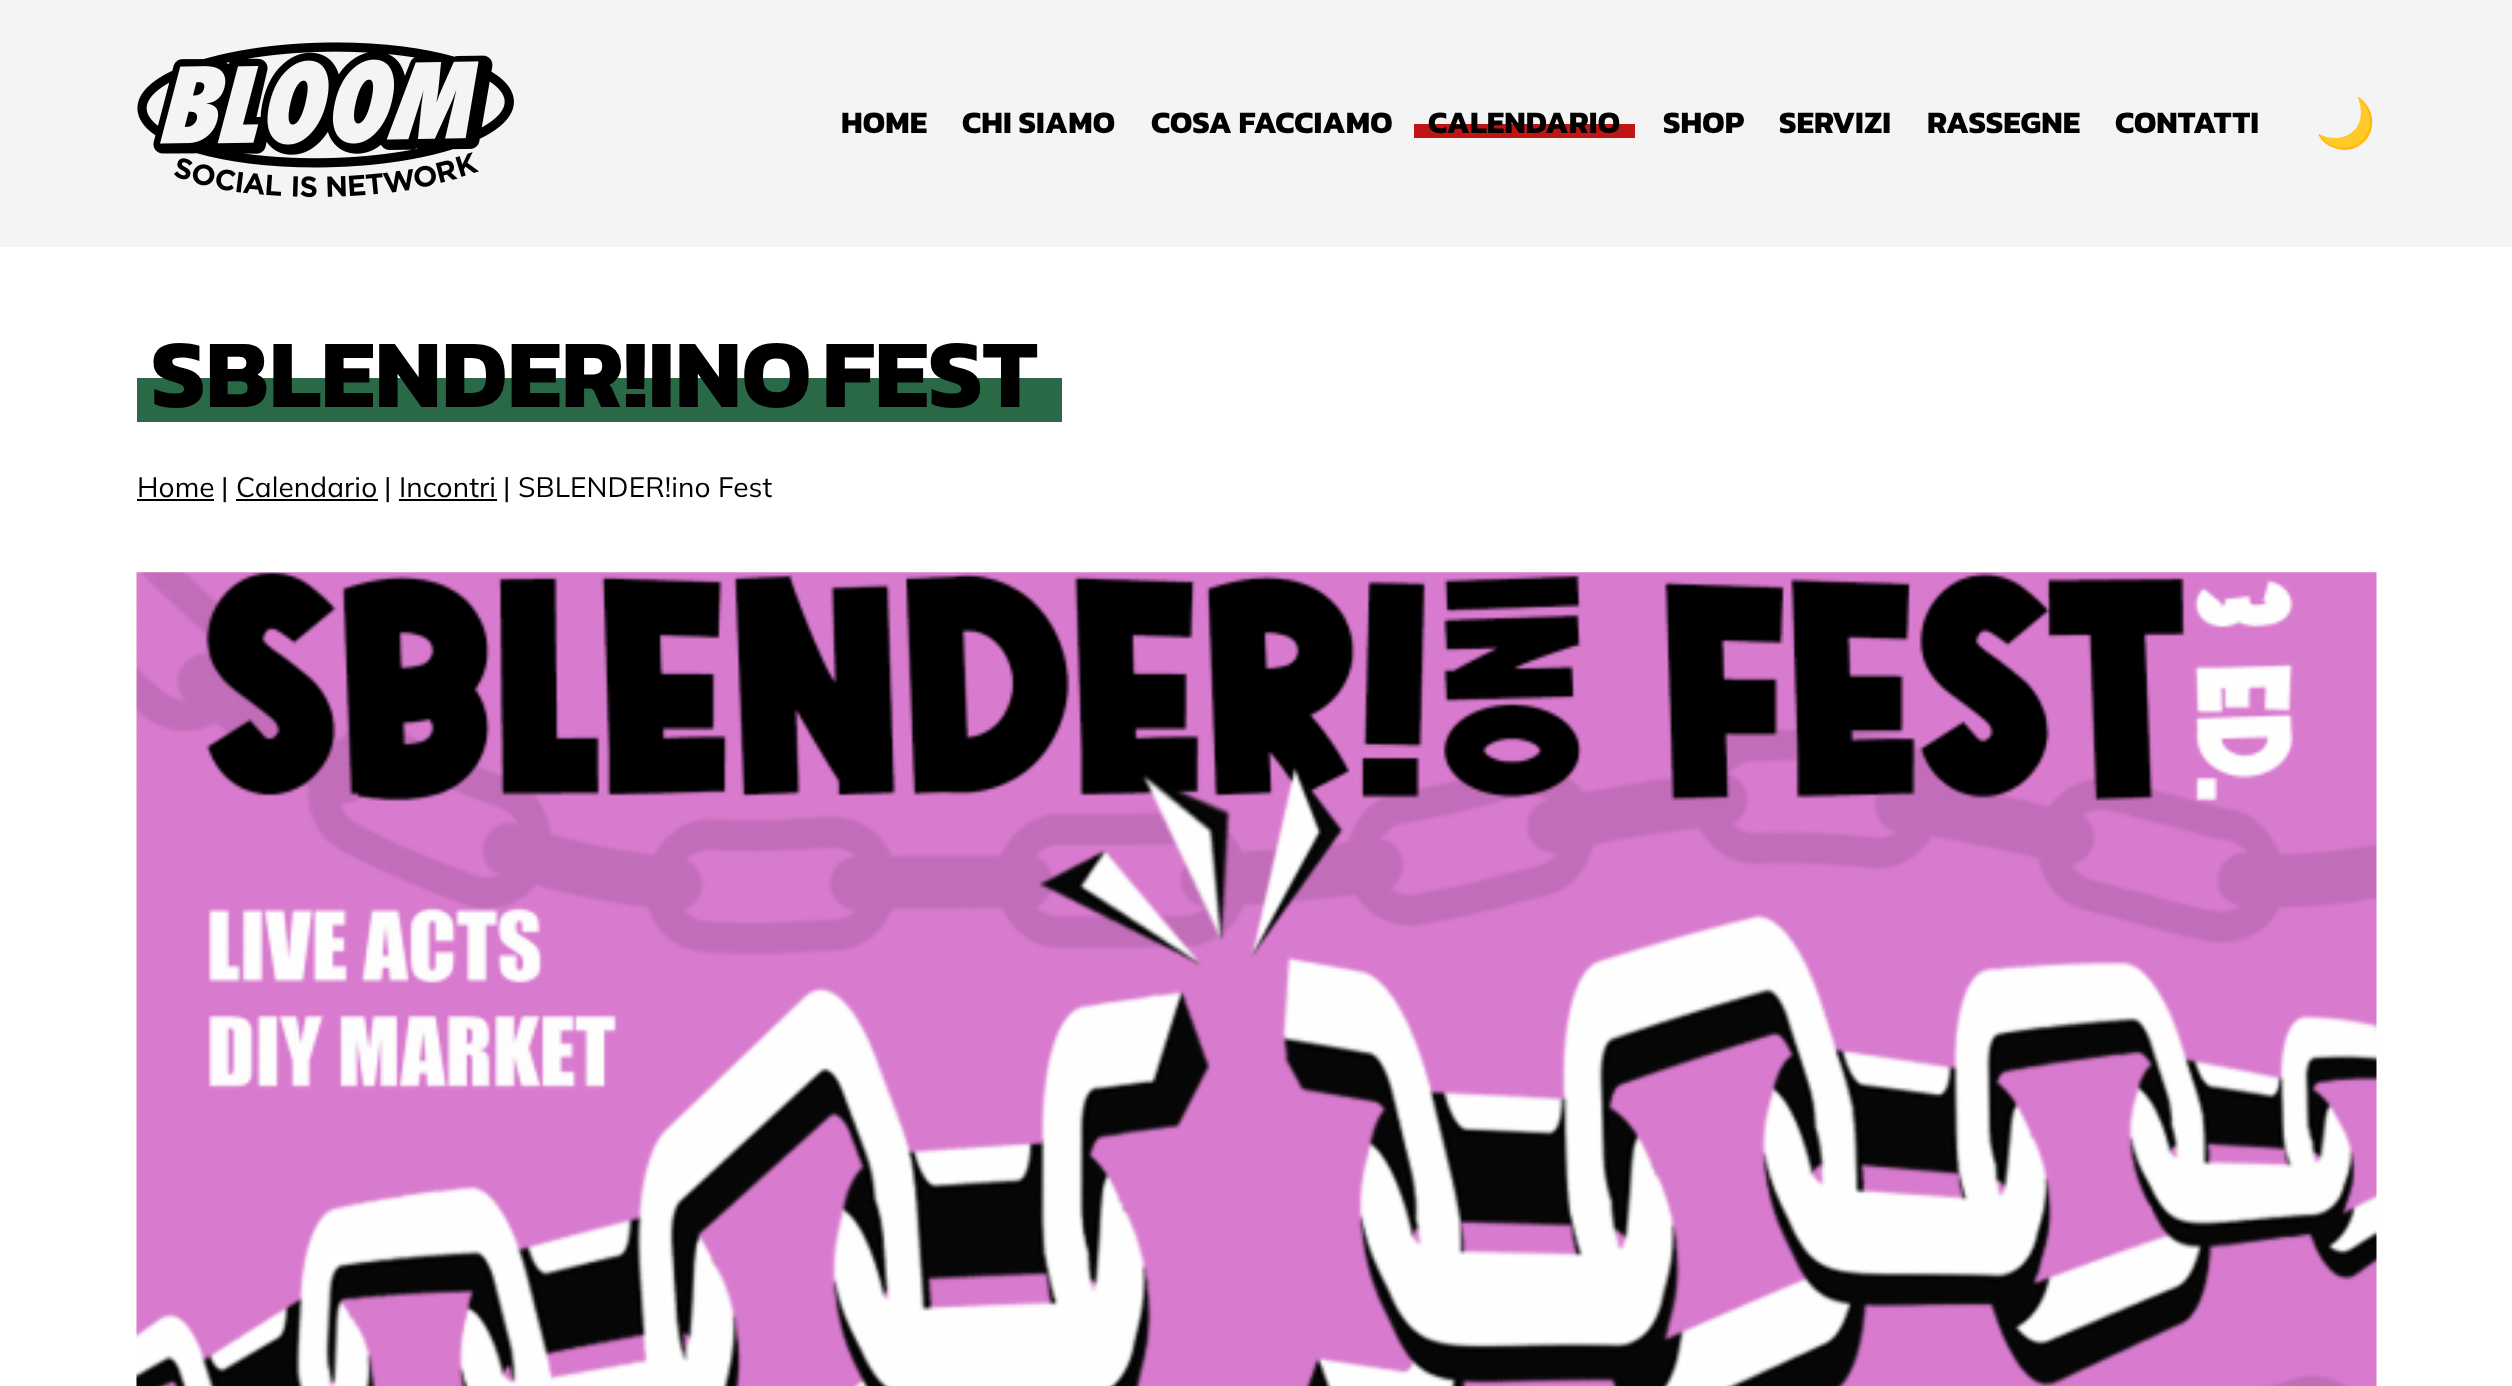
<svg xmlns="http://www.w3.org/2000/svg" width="2512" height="1386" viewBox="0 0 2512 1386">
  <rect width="100%" height="100%" fill="#fff"/>
  <path d="M0 0h2512v247H0z" fill="#f4f4f4"/>
  <image x="137" y="42" width="377" height="156" href="img/1.png"/>
  <path d="M1414 124h221v14H1414z" fill="#bf1514"/>
  <path d="M137 378h897v44H137z" fill="#2a6946"/>
  <path d="M137 499h77v2H137z" fill="#000"/>
  <path d="M236 499h142v2H236z" fill="#000"/>
  <path d="M399 499h98v2H399z" fill="#000"/>
  <image x="136" y="572" width="2241" height="814" href="img/2.png"/>
  <g font-family="Kanit" font-size="31.5" font-weight="bold" letter-spacing="0.1" fill="#000">
    <text x="841" y="133">HOME</text>
    <text x="962" y="133">CHI SIAMO</text>
    <text x="1151" y="133">COSA FACCIAMO</text>
    <text x="1428" y="133">CALENDARIO</text>
    <text x="1663" y="133">SHOP</text>
    <text x="1779" y="133">SERVIZI</text>
    <text x="1927" y="133">RASSEGNE</text>
    <text x="2115" y="133">CONTATTI</text>
  </g>
  <text x="2315" y="140" font-family="Noto Color Emoji" font-size="49" fill="#000">🌙</text>
  <g font-family="Kanit" font-size="98" font-weight="bold" letter-spacing="0.1" fill="#000">
    <text x="151" y="407">SBLENDER!INO</text>
    <text x="822" y="407">FEST</text>
  </g>
  <path d="M1034 378h28v44H1034z" fill="#2a6946"/>
  <g font-family="Mulish" font-size="28" letter-spacing="0.1" fill="#000">
    <text x="137" y="497">Home</text>
    <text x="221" y="497">|</text>
    <text x="236" y="497">Calendario</text>
    <text x="384" y="497">|</text>
    <text x="399" y="497">Incontri</text>
    <text x="503" y="497">|</text>
    <text x="518" y="497">SBLENDER!ino Fest</text>
  </g>
</svg>
